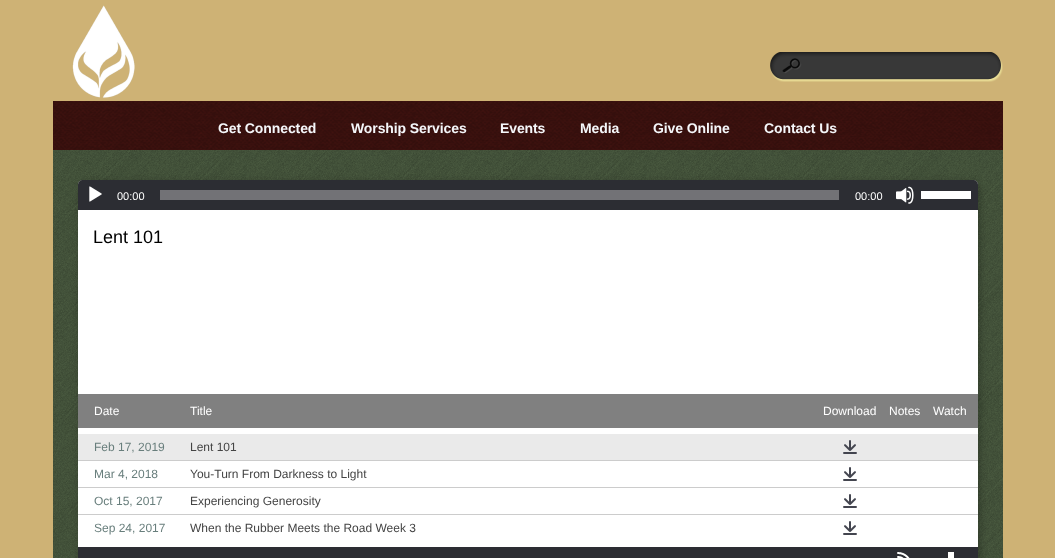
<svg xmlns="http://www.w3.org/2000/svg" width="1055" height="558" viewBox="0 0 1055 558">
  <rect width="100%" height="100%" fill="#ceb275"/>
  <image x="72" y="5" width="63" height="93" href="img/1.png"/>
  <image x="770" y="52" width="233" height="30" href="img/2.png"/>
  <path d="M53 101h950v49H53z" fill="#b3342c"/>
  <image x="53" y="101" width="950" height="49" href="img/3.png"/>
  <path d="M53 150h950v408H53z" fill="#87a575"/>
  <image x="53" y="150" width="950" height="408" href="img/4.png"/>
  <rect x="80" y="182" width="900" height="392" rx="5" fill="#00000040" filter="blur(3.5px)"/>
  <rect x="78" y="180" width="900" height="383" rx="5" fill="#fff"/>
  <path d="M83 180H973C976 180 978 182 978 185V210H78V185C78 182 80 180 83 180Z" fill="#2c2d33"/>
  <image x="89" y="186" width="13" height="16" href="img/5.png"/>
  <path d="M160 190h679v10H160z" fill="#727276"/>
  <image x="896" y="186" width="18" height="18" href="img/6.png"/>
  <path d="M921 191h50v8H921z" fill="#fff"/>
  <path d="M78 394h900v34H78z" fill="#808080"/>
  <path d="M78 434h900v26H78z" fill="#eaeaea"/>
  <image x="843" y="440" width="14" height="14" href="img/7.png"/>
  <path d="M78 460h900v1H78z" fill="#ccc"/>
  <image x="843" y="467" width="14" height="14" href="img/8.png"/>
  <path d="M78 487h900v1H78z" fill="#ccc"/>
  <image x="843" y="494" width="14" height="14" href="img/8.png"/>
  <path d="M78 514h900v1H78z" fill="#ccc"/>
  <image x="843" y="521" width="14" height="14" href="img/8.png"/>
  <path d="M78 547h900v11H78z" fill="#2c2d33"/>
  <image x="897" y="552" width="13" height="6" href="img/9.png"/>
  <path d="M948 552h6v6H948z" fill="#fff"/>
  <g font-family="Liberation Sans" font-size="14" font-weight="bold" letter-spacing="-0.1" fill="#f5f7fa">
    <text x="218" y="133">Get Connected</text>
    <text x="351" y="133">Worship Services</text>
    <text x="500" y="133">Events</text>
    <text x="580" y="133">Media</text>
    <text x="653" y="133">Give Online</text>
    <text x="764" y="133">Contact Us</text>
  </g>
  <g font-family="Liberation Sans" font-size="11" fill="#fff">
    <text x="117" y="200">00:00</text>
    <text x="855" y="200">00:00</text>
  </g>
  <text x="93" y="243" font-family="Liberation Sans" font-size="18" fill="#000">Lent 101</text>
  <g font-family="Liberation Sans" font-size="12" fill="#fff">
    <text x="94" y="415">Date</text>
    <text x="190" y="415">Title</text>
    <text x="823" y="415">Download</text>
    <text x="889" y="415">Notes</text>
    <text x="933" y="415">Watch</text>
  </g>
  <text x="94" y="451" font-family="Liberation Sans" font-size="12" fill="#687e7c">Feb 17, 2019</text>
  <text x="190" y="451" font-family="Liberation Sans" font-size="12" fill="#444">Lent 101</text>
  <text x="94" y="478" font-family="Liberation Sans" font-size="12" fill="#687e7c">Mar 4, 2018</text>
  <text x="190" y="478" font-family="Liberation Sans" font-size="12" fill="#444">You-Turn From Darkness to Light</text>
  <text x="94" y="505" font-family="Liberation Sans" font-size="12" fill="#687e7c">Oct 15, 2017</text>
  <text x="190" y="505" font-family="Liberation Sans" font-size="12" fill="#444">Experiencing Generosity</text>
  <text x="94" y="532" font-family="Liberation Sans" font-size="12" fill="#687e7c">Sep 24, 2017</text>
  <text x="190" y="532" font-family="Liberation Sans" font-size="12" fill="#444">When the Rubber Meets the Road Week 3</text>
</svg>
